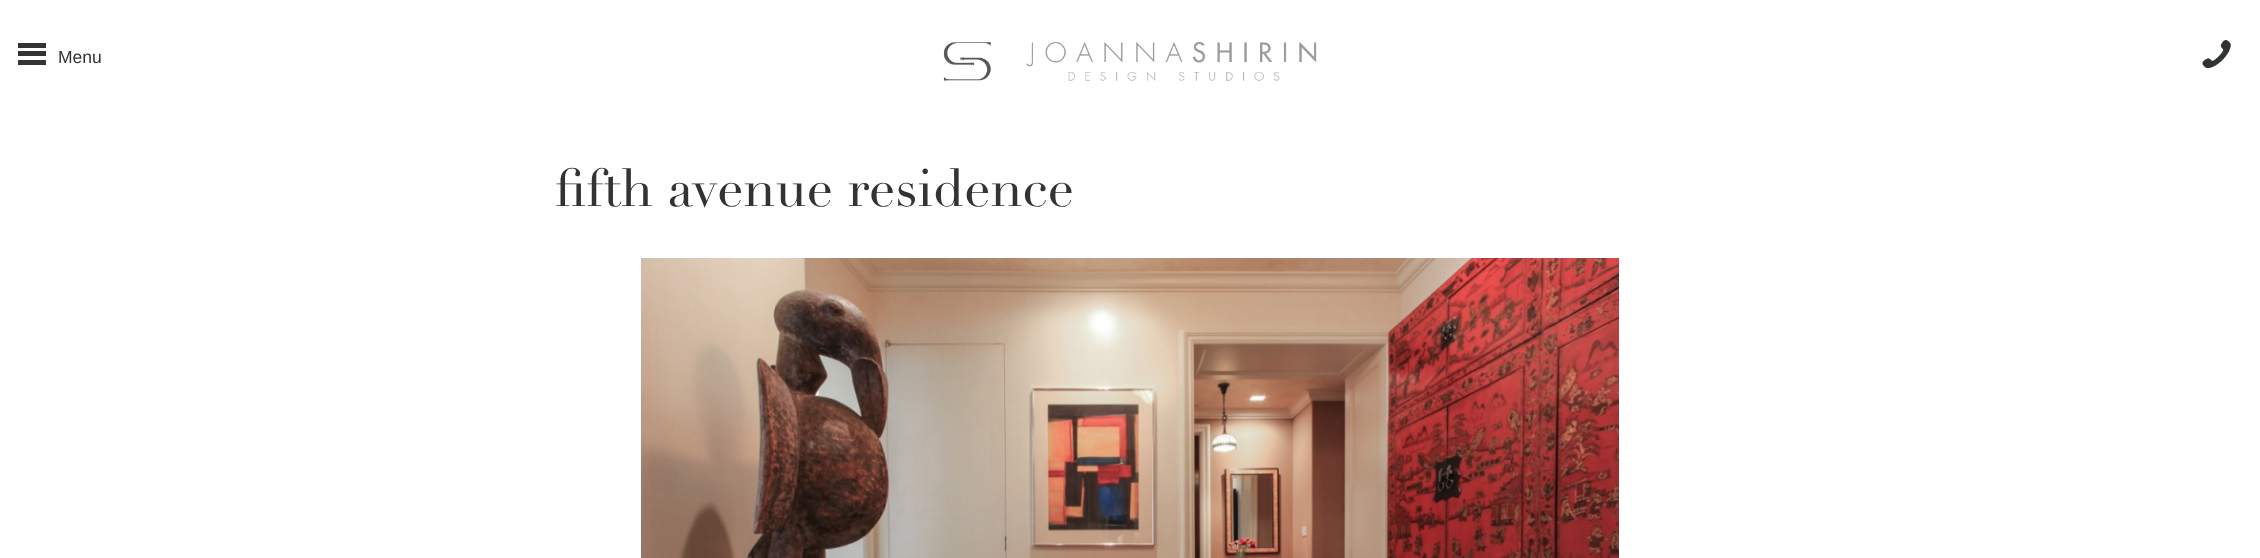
<svg xmlns="http://www.w3.org/2000/svg" width="2260" height="558" viewBox="0 0 2260 558">
  <rect width="100%" height="100%" fill="#fff"/>
  <image x="943" y="41" width="374" height="40" href="img/1.png"/>
  <path d="M18 43h28v5H18z" fill="#333"/>
  <path d="M18 51h28v5H18z" fill="#333"/>
  <path d="M18 60h28v5H18z" fill="#333"/>
  <image x="2202" y="40" width="29" height="28" href="img/2.png"/>
  <image x="641" y="258" width="978" height="300" href="img/3.png"/>
  <text x="58" y="63" font-family="Liberation Sans" font-size="17.5" fill="#333">Menu</text>
  <text x="555" y="206" font-family="Didot" font-size="52.5" fill="#333">fifth avenue residence</text>
</svg>
